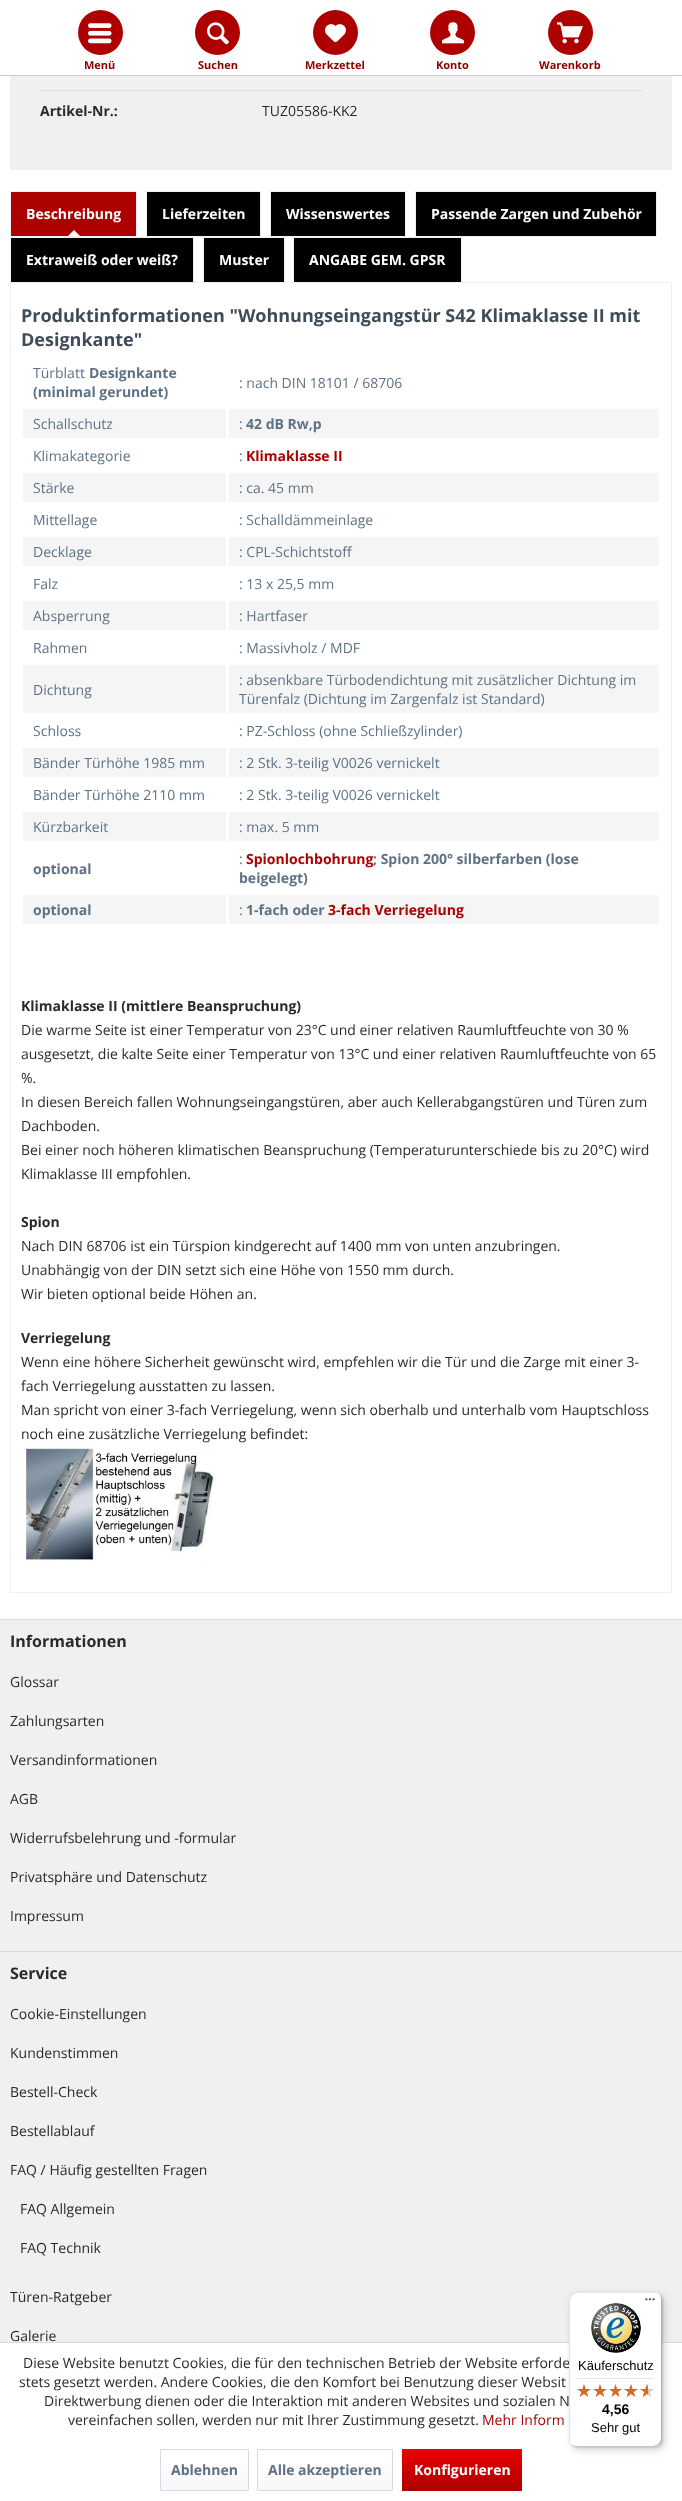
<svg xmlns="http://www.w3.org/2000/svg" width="682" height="2501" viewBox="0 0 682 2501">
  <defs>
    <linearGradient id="g1" gradientUnits="userSpaceOnUse" x1="205" y1="2450" x2="205" y2="2490"><stop offset="0" stop-color="#fff"/><stop offset="1" stop-color="#f8f8fa"/></linearGradient>
    <linearGradient id="g2" gradientUnits="userSpaceOnUse" x1="325" y1="2450" x2="325" y2="2490"><stop offset="0" stop-color="#fff"/><stop offset="1" stop-color="#f8f8fa"/></linearGradient>
    <linearGradient id="g3" gradientUnits="userSpaceOnUse" x1="462" y1="2449" x2="462" y2="2491"><stop offset="0" stop-color="#ea0100"/><stop offset="1" stop-color="#ad0100"/></linearGradient>
  </defs>
  <rect width="100%" height="100%" fill="#fff"/>
  <path d="M0 75h682v1H0z" fill="#ccc"/>
  <circle cx="100.5" cy="32.5" r="22.5" fill="#ad0100"/>
  <image x="88" y="23" width="24" height="21" href="img/1.png"/>
  <circle cx="217.5" cy="32.5" r="22.5" fill="#ad0100"/>
  <image x="207" y="22" width="22" height="23" href="img/2.png"/>
  <circle cx="335.5" cy="32.5" r="22.5" fill="#ad0100"/>
  <image x="325" y="24" width="21" height="19" href="img/3.png"/>
  <circle cx="452.5" cy="32.5" r="22.5" fill="#ad0100"/>
  <image x="442" y="22" width="22" height="22" href="img/4.png"/>
  <circle cx="570.5" cy="32.5" r="22.5" fill="#ad0100"/>
  <image x="557" y="22" width="26" height="22" href="img/5.png"/>
  <path d="M10 76h662v94H10z" fill="#f1f0f0"/>
  <path d="M40 90h602v1H40z" fill="#dadae5"/>
  <path d="M11 192h125v44H11z" fill="#ad0100"/>
  <image x="68" y="230" width="12" height="6" href="img/6.png"/>
  <path d="M10.5 191.5h126v45H10.5z" fill="none" stroke="#f1f0f0"/>
  <path d="M146.5 191.5h114v45H146.5z" fill="#000" stroke="#f1f0f0"/>
  <path d="M270.5 191.5h135v45H270.5z" fill="#000" stroke="#f1f0f0"/>
  <path d="M415.5 191.5h241v45H415.5z" fill="#000" stroke="#f1f0f0"/>
  <path d="M10.5 282.5h661v1310H10.5z" fill="none" stroke="#f1f0f0"/>
  <path d="M10.5 237.5h183v45H10.5z" fill="#000" stroke="#f1f0f0"/>
  <path d="M203.5 237.5h81v45H203.5z" fill="#000" stroke="#f1f0f0"/>
  <path d="M293.5 237.5h168v45H293.5z" fill="#000" stroke="#f1f0f0"/>
  <path d="M23 409h203v29H23z" fill="#f5f5f5"/>
  <path d="M229 409h430v29H229z" fill="#f5f5f5"/>
  <path d="M23 473h203v29H23z" fill="#f5f5f5"/>
  <path d="M229 473h430v29H229z" fill="#f5f5f5"/>
  <path d="M23 537h203v29H23z" fill="#f5f5f5"/>
  <path d="M229 537h430v29H229z" fill="#f5f5f5"/>
  <path d="M23 601h203v29H23z" fill="#f5f5f5"/>
  <path d="M229 601h430v29H229z" fill="#f5f5f5"/>
  <path d="M23 665h203v48H23z" fill="#f5f5f5"/>
  <path d="M229 665h430v48H229z" fill="#f5f5f5"/>
  <path d="M23 748h203v29H23z" fill="#f5f5f5"/>
  <path d="M229 748h430v29H229z" fill="#f5f5f5"/>
  <path d="M23 812h203v29H23z" fill="#f5f5f5"/>
  <path d="M229 812h430v29H229z" fill="#f5f5f5"/>
  <path d="M23 895h203v29H23z" fill="#f5f5f5"/>
  <path d="M229 895h430v29H229z" fill="#f5f5f5"/>
  <image x="21" y="1446" width="195" height="116" href="img/7.png"/>
  <path d="M0 1620h682v722H0z" fill="#f1f0f0"/>
  <path d="M0 1619h682v1H0z" fill="#dadae5"/>
  <path d="M0 1951h682v1H0z" fill="#dadae5"/>
  <path d="M0 2342h682v1H0z" fill="#dadae5"/>
  <path d="M161 2464h87v26H161z" fill="url(#g1)"/>
  <path d="M160.5 2449.5h88v41H160.5z" fill="none" stroke="#dadae5"/>
  <path d="M258 2464h134v26H258z" fill="url(#g2)"/>
  <path d="M257.5 2449.5h135v41H257.5z" fill="none" stroke="#dadae5"/>
  <path d="M402 2449h120v42H402z" fill="url(#g3)"/>
  <rect x="572" y="2295" width="93" height="155" rx="8" fill="#00000026" filter="blur(4px)"/>
  <rect x="570" y="2293" width="93" height="155" rx="8" fill="#00000026" filter="blur(1px)"/>
  <g font-family="Open Sans" font-size="11" font-weight="bold" fill="#8b0000">
    <text x="84" y="69">Menü</text>
    <text x="198" y="69">Suchen</text>
    <text x="305" y="69">Merkzettel</text>
    <text x="436" y="69">Konto</text>
    <text x="539" y="69">Warenkorb</text>
  </g>
  <text x="40" y="116" font-family="Open Sans" font-size="14" font-weight="bold" fill="#2a2a2a">Artikel-Nr.:</text>
  <text x="262" y="116" font-family="Open Sans" font-size="14" fill="#2a2a2a">TUZ05586-KK2</text>
  <g font-family="Open Sans" font-size="14" font-weight="bold" fill="#fff">
    <text x="26" y="219">Beschreibung</text>
    <text x="162" y="219">Lieferzeiten</text>
    <text x="286" y="219">Wissenswertes</text>
    <text x="431" y="219">Passende Zargen und Zubehör</text>
    <text x="26" y="265">Extraweiß oder weiß?</text>
    <text x="219" y="265">Muster</text>
    <text x="309" y="265">ANGABE GEM. GPSR</text>
  </g>
  <g font-family="Open Sans" font-size="18" font-weight="bold" fill="#3f4c58">
    <text x="21" y="322">Produktinformationen "Wohnungseingangstür S42 Klimaklasse II mit</text>
    <text x="21" y="346">Designkante"</text>
  </g>
  <text x="33" y="378" font-family="Open Sans" font-size="14" fill="#5f7285">Türblatt</text>
  <g font-family="Open Sans" font-size="14" font-weight="bold" fill="#5f7285">
    <text x="89" y="378">Designkante</text>
    <text x="33" y="397">(minimal gerundet)</text>
  </g>
  <g font-family="Open Sans" font-size="14" fill="#5f7285">
    <text x="239" y="388">: nach DIN 18101 / 68706</text>
    <text x="33" y="429">Schallschutz</text>
    <text x="239" y="429">:</text>
  </g>
  <text x="246" y="429" font-family="Open Sans" font-size="14" font-weight="bold" fill="#5f7285">42 dB Rw,p</text>
  <g font-family="Open Sans" font-size="14" fill="#5f7285">
    <text x="33" y="461">Klimakategorie</text>
    <text x="239" y="461">:</text>
  </g>
  <text x="246" y="461" font-family="Open Sans" font-size="14" font-weight="bold" fill="#ad0100">Klimaklasse II</text>
  <g font-family="Open Sans" font-size="14" fill="#5f7285">
    <text x="33" y="493">Stärke</text>
    <text x="239" y="493">: ca. 45 mm</text>
    <text x="33" y="525">Mittellage</text>
    <text x="239" y="525">: Schalldämmeinlage</text>
    <text x="33" y="557">Decklage</text>
    <text x="239" y="557">: CPL-Schichtstoff</text>
    <text x="33" y="589">Falz</text>
    <text x="239" y="589">: 13 x 25,5 mm</text>
    <text x="33" y="621">Absperrung</text>
    <text x="239" y="621">: Hartfaser</text>
    <text x="33" y="653">Rahmen</text>
    <text x="239" y="653">: Massivholz / MDF</text>
    <text x="33" y="695">Dichtung</text>
    <text x="239" y="685">: absenkbare Türbodendichtung mit zusätzlicher Dichtung im</text>
    <text x="239" y="704">Türenfalz (Dichtung im Zargenfalz ist Standard)</text>
    <text x="33" y="736">Schloss</text>
    <text x="239" y="736">: PZ-Schloss (ohne Schließzylinder)</text>
    <text x="33" y="768">Bänder Türhöhe 1985 mm</text>
    <text x="239" y="768">: 2 Stk. 3-teilig V0026 vernickelt</text>
    <text x="33" y="800">Bänder Türhöhe 2110 mm</text>
    <text x="239" y="800">: 2 Stk. 3-teilig V0026 vernickelt</text>
    <text x="33" y="832">Kürzbarkeit</text>
    <text x="239" y="832">: max. 5 mm</text>
  </g>
  <text x="33" y="874" font-family="Open Sans" font-size="14" font-weight="bold" fill="#5f7285">optional</text>
  <text x="239" y="864" font-family="Open Sans" font-size="14" fill="#5f7285">:</text>
  <text x="246" y="864" font-family="Open Sans" font-size="14" font-weight="bold" fill="#ad0100">Spionlochbohrung</text>
  <g font-family="Open Sans" font-size="14" font-weight="bold" fill="#5f7285">
    <text x="373" y="864">; Spion 200° silberfarben (lose</text>
    <text x="239" y="883">beigelegt)</text>
    <text x="33" y="915">optional</text>
  </g>
  <text x="239" y="915" font-family="Open Sans" font-size="14" fill="#5f7285">:</text>
  <text x="246" y="915" font-family="Open Sans" font-size="14" font-weight="bold" fill="#5f7285">1-fach oder</text>
  <text x="328" y="915" font-family="Open Sans" font-size="14" font-weight="bold" fill="#ad0100">3-fach Verriegelung</text>
  <text x="21" y="1011" font-family="Open Sans" font-size="14" font-weight="bold" fill="#2a2a2a">Klimaklasse II (mittlere Beanspruchung)</text>
  <g font-family="Open Sans" font-size="14" fill="#2a2a2a">
    <text x="21" y="1035">Die warme Seite ist einer Temperatur von 23°C und einer relativen Raumluftfeuchte von 30 %</text>
    <text x="21" y="1059">ausgesetzt, die kalte Seite einer Temperatur von 13°C und einer relativen Raumluftfeuchte von 65</text>
    <text x="21" y="1083">%.</text>
    <text x="21" y="1107">In diesen Bereich fallen Wohnungseingangstüren, aber auch Kellerabgangstüren und Türen zum</text>
    <text x="21" y="1131">Dachboden.</text>
    <text x="21" y="1155">Bei einer noch höheren klimatischen Beanspruchung (Temperaturunterschiede bis zu 20°C) wird</text>
    <text x="21" y="1179">Klimaklasse III empfohlen.</text>
  </g>
  <text x="21" y="1227" font-family="Open Sans" font-size="14" font-weight="bold" fill="#2a2a2a">Spion</text>
  <g font-family="Open Sans" font-size="14" fill="#2a2a2a">
    <text x="21" y="1251">Nach DIN 68706 ist ein Türspion kindgerecht auf 1400 mm von unten anzubringen.</text>
    <text x="21" y="1275">Unabhängig von der DIN setzt sich eine Höhe von 1550 mm durch.</text>
    <text x="21" y="1299">Wir bieten optional beide Höhen an.</text>
  </g>
  <text x="21" y="1343" font-family="Open Sans" font-size="14" font-weight="bold" fill="#2a2a2a">Verriegelung</text>
  <g font-family="Open Sans" font-size="14" fill="#2a2a2a">
    <text x="21" y="1367">Wenn eine höhere Sicherheit gewünscht wird, empfehlen wir die Tür und die Zarge mit einer 3-</text>
    <text x="21" y="1391">fach Verriegelung ausstatten zu lassen.</text>
    <text x="21" y="1415">Man spricht von einer 3-fach Verriegelung, wenn sich oberhalb und unterhalb vom Hauptschloss</text>
    <text x="21" y="1439">noch eine zusätzliche Verriegelung befindet:</text>
  </g>
  <text x="10" y="1647" font-family="Open Sans" font-size="16" font-weight="bold" fill="#2a2a2a">Informationen</text>
  <g font-family="Open Sans" font-size="14" fill="#2a2a2a">
    <text x="10" y="1687">Glossar</text>
    <text x="10" y="1726">Zahlungsarten</text>
    <text x="10" y="1765">Versandinformationen</text>
    <text x="10" y="1804">AGB</text>
    <text x="10" y="1843">Widerrufsbelehrung und -formular</text>
    <text x="10" y="1882">Privatsphäre und Datenschutz</text>
    <text x="10" y="1921">Impressum</text>
  </g>
  <text x="10" y="1979" font-family="Open Sans" font-size="16" font-weight="bold" fill="#2a2a2a">Service</text>
  <g font-family="Open Sans" font-size="14" fill="#2a2a2a">
    <text x="10" y="2019">Cookie-Einstellungen</text>
    <text x="10" y="2058">Kundenstimmen</text>
    <text x="10" y="2097">Bestell-Check</text>
    <text x="10" y="2136">Bestellablauf</text>
    <text x="10" y="2175">FAQ / Häufig gestellten Fragen</text>
    <text x="20" y="2214">FAQ Allgemein</text>
    <text x="20" y="2253">FAQ Technik</text>
    <text x="10" y="2302">Türen-Ratgeber</text>
    <text x="10" y="2341">Galerie</text>
    <text x="23" y="2368">Diese Website benutzt Cookies, die für den technischen Betrieb der Website erforde</text>
    <text x="19" y="2387">stets gesetzt werden. Andere Cookies, die den Komfort bei Benutzung dieser Websit</text>
    <text x="44" y="2406">Direktwerbung dienen oder die Interaktion mit anderen Websites und sozialen N</text>
    <text x="68" y="2425">vereinfachen sollen, werden nur mit Ihrer Zustimmung gesetzt.</text>
  </g>
  <text x="482" y="2425" font-family="Open Sans" font-size="14" fill="#ad0100">Mehr Inform</text>
  <g font-family="Open Sans" font-size="14" font-weight="bold" fill="#5f7285">
    <text x="171" y="2475">Ablehnen</text>
    <text x="268" y="2475">Alle akzeptieren</text>
  </g>
  <text x="414" y="2475" font-family="Open Sans" font-size="14" font-weight="bold" fill="#fff">Konfigurieren</text>
  <rect x="569" y="2292" width="93" height="155" rx="8" fill="#fff"/>
  <path d="M578 2293H655C657 2293 659 2294 661 2296C659 2294 657 2292 654 2292H577C573 2292 569 2296 569 2300V2439C569 2442 571 2444 573 2446C571 2444 570 2442 570 2440V2301C570 2297 574 2293 578 2293Z" fill="#0000001a"/>
  <path d="M570 2443C572 2445 574 2447 577 2447H654C658 2447 662 2443 662 2439V2300C662 2297 660 2295 658 2293C660 2295 661 2297 661 2299V2438C661 2442 657 2446 653 2446H576C574 2446 572 2445 570 2443Z" fill="#00000033"/>
  <path d="M571 2444C572 2446 575 2447 577 2447H654C658 2447 662 2443 662 2439V2300C662 2298 661 2295 659 2294C660 2295 661 2297 661 2299V2438C661 2443 658 2446 653 2446H576C574 2446 572 2445 571 2444Z" fill="#32323233"/>
  <image x="645" y="2298" width="10" height="3" href="img/8.png"/>
  <path d="M571 2444C572 2446 575 2447 577 2447H654C658 2447 662 2443 662 2439V2438C662 2443 658 2446 654 2446H576C574 2446 572 2445 571 2444Z" fill="#ffffff4d"/>
  <image x="591" y="2303" width="50" height="50" href="img/9.png"/>
  <text x="578" y="2370" font-family="Liberation Sans" font-size="13" fill="#000">Käuferschutz</text>
  <path d="M577 2378h77v1H577z" fill="#e5e5e5"/>
  <image x="577" y="2384" width="14" height="13" href="img/10.png"/>
  <image x="593" y="2384" width="14" height="13" href="img/10.png"/>
  <image x="609" y="2384" width="13" height="13" href="img/11.png"/>
  <image x="624" y="2384" width="14" height="13" href="img/10.png"/>
  <image x="640" y="2384" width="14" height="13" href="img/10.png"/>
  <image x="577" y="2384" width="14" height="13" href="img/12.png"/>
  <image x="593" y="2384" width="14" height="13" href="img/12.png"/>
  <image x="609" y="2384" width="13" height="13" href="img/13.png"/>
  <image x="624" y="2384" width="14" height="13" href="img/12.png"/>
  <image x="640" y="2384" width="8" height="13" href="img/14.png"/>
  <text x="602" y="2414" font-family="Liberation Sans" font-size="14" font-weight="bold" fill="#000">4,56</text>
  <text x="591" y="2432" font-family="Liberation Sans" font-size="13" fill="#000">Sehr gut</text>
</svg>
